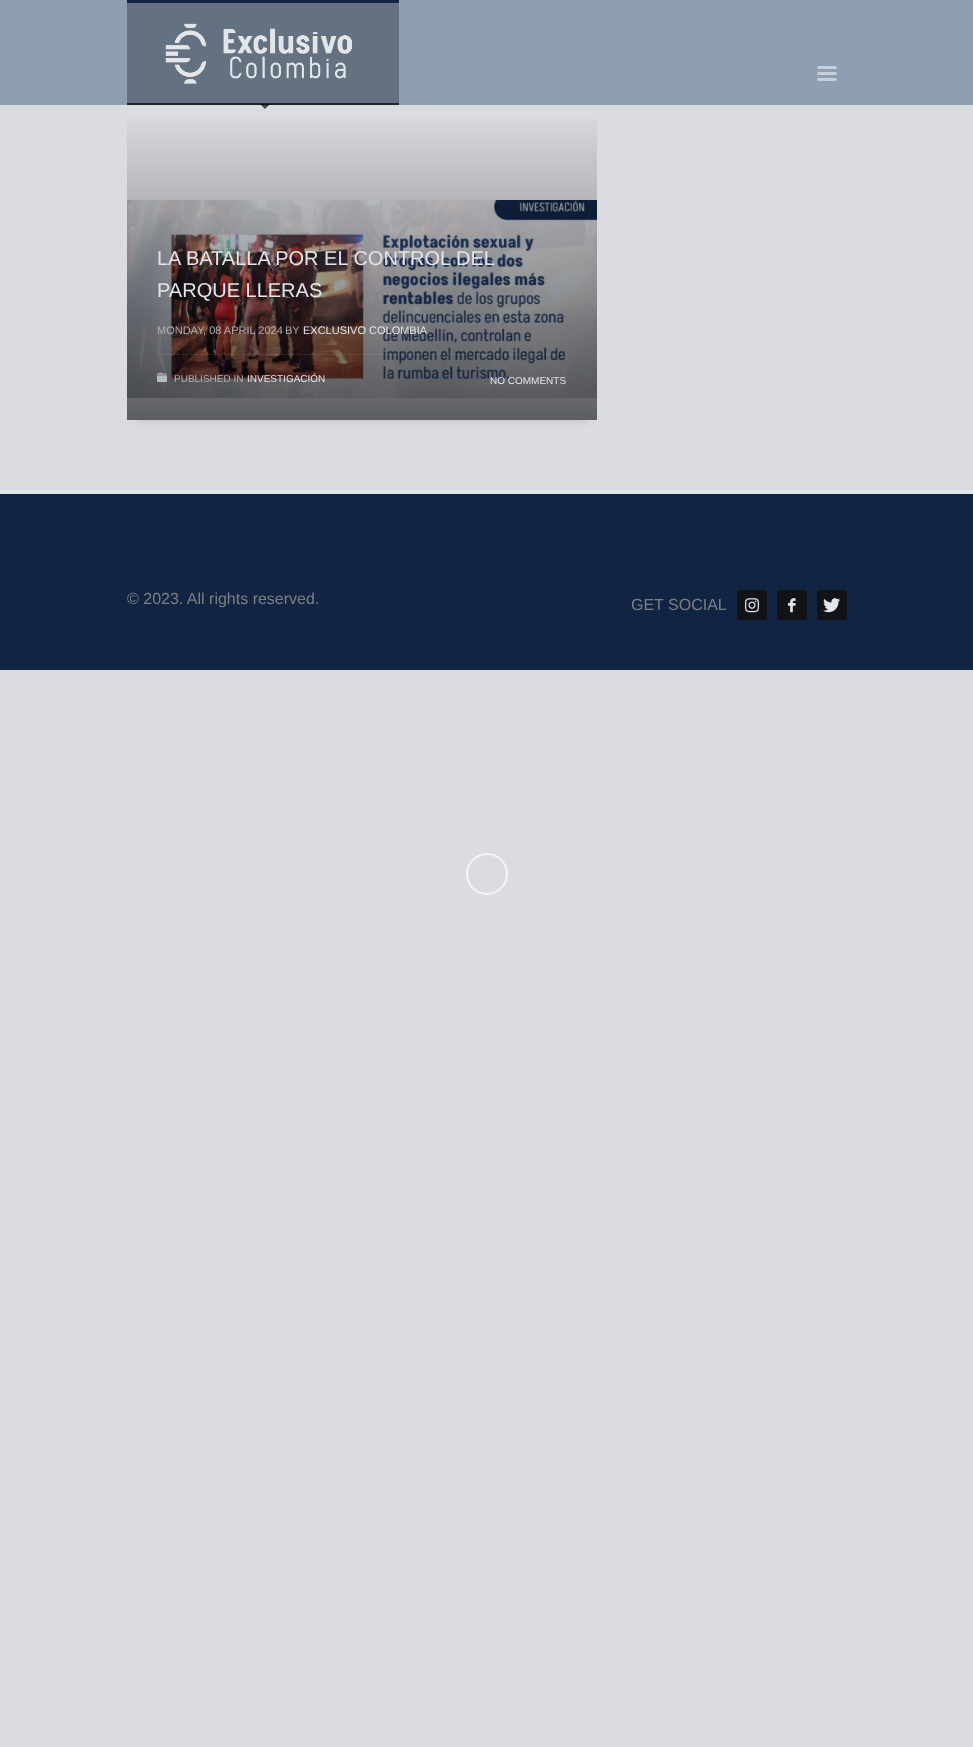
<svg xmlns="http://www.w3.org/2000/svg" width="973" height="1747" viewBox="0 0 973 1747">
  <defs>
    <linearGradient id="g1" gradientUnits="userSpaceOnUse" x1="362" y1="108" x2="362" y2="420"><stop offset="0" stop-color="#020408" stop-opacity="0"/><stop offset="1" stop-color="#020408" stop-opacity="0.6"/></linearGradient>
  </defs>
  <rect width="100%" height="100%" fill="#dadce0"/>
  <path d="M0 0h973v105H0z" fill="#8e9fb4"/>
  <path d="M127 3h272v100H127z" fill="#647181"/>
  <path d="M127 0h272v3H127z" fill="#112444"/>
  <path d="M127 103h272v2H127z" fill="#1f252c"/>
  <image x="165" y="23" width="188" height="61" href="img/1.png"/>
  <path d="M260 104H270L265 109Z" fill="#020408b3"/>
  <rect x="817" y="66" width="20" height="3" rx="1.5" fill="#c7cfd8"/>
  <rect x="817" y="72" width="20" height="3" rx="1.5" fill="#c7cfd8"/>
  <rect x="817" y="78" width="20" height="3" rx="1.5" fill="#c7cfd8"/>
  <path d="M137 220h450v200H137z" fill="#02040826" filter="blur(5px)"/>
  <rect x="127" y="200" width="470" height="220" rx="3" fill="#e2e5e9"/>
  <image x="127" y="200" width="470" height="198" href="img/2.png"/>
  <path d="M127 119h470v301H127z" fill="url(#g1)"/>
  <path d="M157 354h410v1H157z" fill="#e2e5e91a"/>
  <image x="157" y="372" width="10" height="10" href="img/3.png"/>
  <path d="M0 494h973v176H0z" fill="#112444"/>
  <path d="M0 490h973v4H0z" fill="#e2e5e9"/>
  <rect x="737" y="590" width="30" height="30" rx="3" fill="#111317"/>
  <image x="745" y="598" width="14" height="15" href="img/4.png"/>
  <rect x="777" y="590" width="30" height="30" rx="3" fill="#111317"/>
  <image x="788" y="598" width="8" height="15" href="img/5.png"/>
  <rect x="817" y="590" width="30" height="30" rx="3" fill="#111317"/>
  <image x="823" y="598" width="17" height="15" href="img/6.png"/>
  <circle cx="487" cy="874" r="20" fill="none" stroke="#f5f5f5" stroke-width="2"/>
  <g font-family="Liberation Sans" font-size="20" fill="#e2e5e9">
    <text x="157" y="265">LA BATALLA POR EL CONTROL DEL</text>
    <text x="157" y="297">PARQUE LLERAS</text>
  </g>
  <text x="157" y="334" font-family="Liberation Sans" font-size="11" fill="#b5afb0">MONDAY, 08 APRIL 2024</text>
  <text x="285" y="334" font-family="Liberation Sans" font-size="11" fill="#aba7aa">BY</text>
  <text x="303" y="334" font-family="Liberation Sans" font-size="11" fill="#e2e5e9">EXCLUSIVO COLOMBIA</text>
  <text x="174" y="382" font-family="Liberation Sans" font-size="10" fill="#b6b3b6">PUBLISHED IN</text>
  <g font-family="Liberation Sans" font-size="10" fill="#e2e5e9">
    <text x="247" y="382">INVESTIGACIÓN</text>
    <text x="490" y="384">NO COMMENTS</text>
  </g>
  <g font-family="Liberation Sans" font-size="16" fill="#7c8084">
    <text x="127" y="604">© 2023. All rights reserved.</text>
    <text x="631" y="610">GET SOCIAL</text>
  </g>
</svg>
